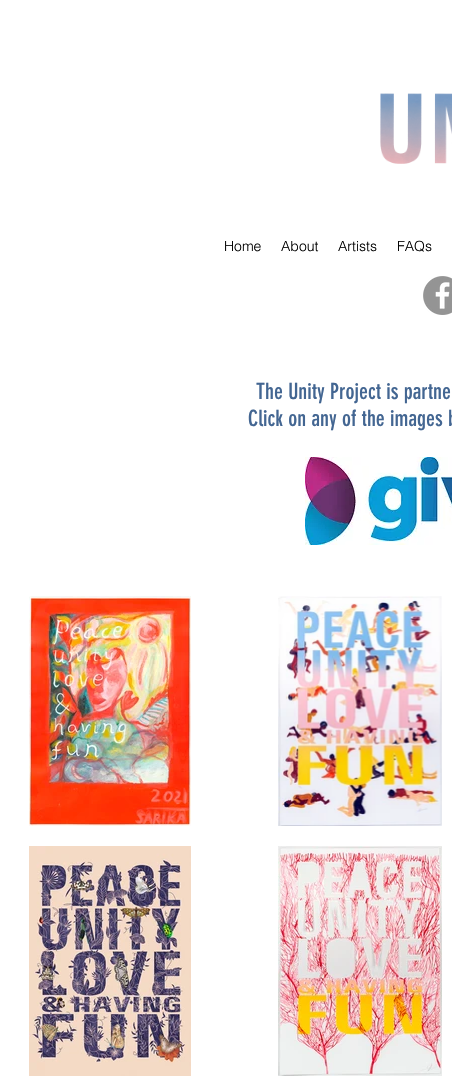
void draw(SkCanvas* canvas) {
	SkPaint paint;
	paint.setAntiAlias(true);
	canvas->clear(0xffffffff);
	canvas->drawImageRect(SkImages::DeferredFromEncodedData(SkData::MakeFromFileName("img1.png")), SkRect::MakeXYWH(380, 93, 72, 71), SkSamplingOptions());
	SkFont f1(fontMgr->matchFamilyStyle("helvetica", SkFontStyle(300, SkFontStyle::kNormal_Width, SkFontStyle::kUpright_Slant)), 14);
	f1.setSubpixel(true);
	paint.setColor(0xff000000);
	canvas->drawString("Home", 224, 251, f1, paint);
	canvas->drawString("About", 281, 251, f1, paint);
	canvas->drawString("Artists", 338, 251, f1, paint);
	canvas->drawString("FAQs", 397, 251, f1, paint);
	canvas->drawImageRect(SkImages::DeferredFromEncodedData(SkData::MakeFromFileName("img2.png")), SkRect::MakeXYWH(423, 276, 29, 39), SkSamplingOptions());
	SkFont f2(fontMgr->matchFamilyStyle("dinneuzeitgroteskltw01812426", SkFontStyle::Normal()), 22);
	f2.setSubpixel(true);
	paint.setColor(0xff436692);
	canvas->drawString("The Unity Project is partne", 256, 399, f2, paint);
	canvas->drawString("Click on any of the images b", 248, 426, f2, paint);
	canvas->drawImageRect(SkImages::DeferredFromEncodedData(SkData::MakeFromFileName("img3.png")), SkRect::MakeXYWH(305, 457, 147, 88), SkSamplingOptions());
	canvas->drawImageRect(SkImages::DeferredFromEncodedData(SkData::MakeFromFileName("img4.png")), SkRect::MakeXYWH(29, 596, 162, 230), SkSamplingOptions());
	canvas->drawImageRect(SkImages::DeferredFromEncodedData(SkData::MakeFromFileName("img5.png")), SkRect::MakeXYWH(278, 596, 164, 230), SkSamplingOptions());
	canvas->drawImageRect(SkImages::DeferredFromEncodedData(SkData::MakeFromFileName("img6.png")), SkRect::MakeXYWH(29, 846, 162, 230), SkSamplingOptions());
	canvas->drawImageRect(SkImages::DeferredFromEncodedData(SkData::MakeFromFileName("img7.png")), SkRect::MakeXYWH(278, 846, 164, 230), SkSamplingOptions());
}
